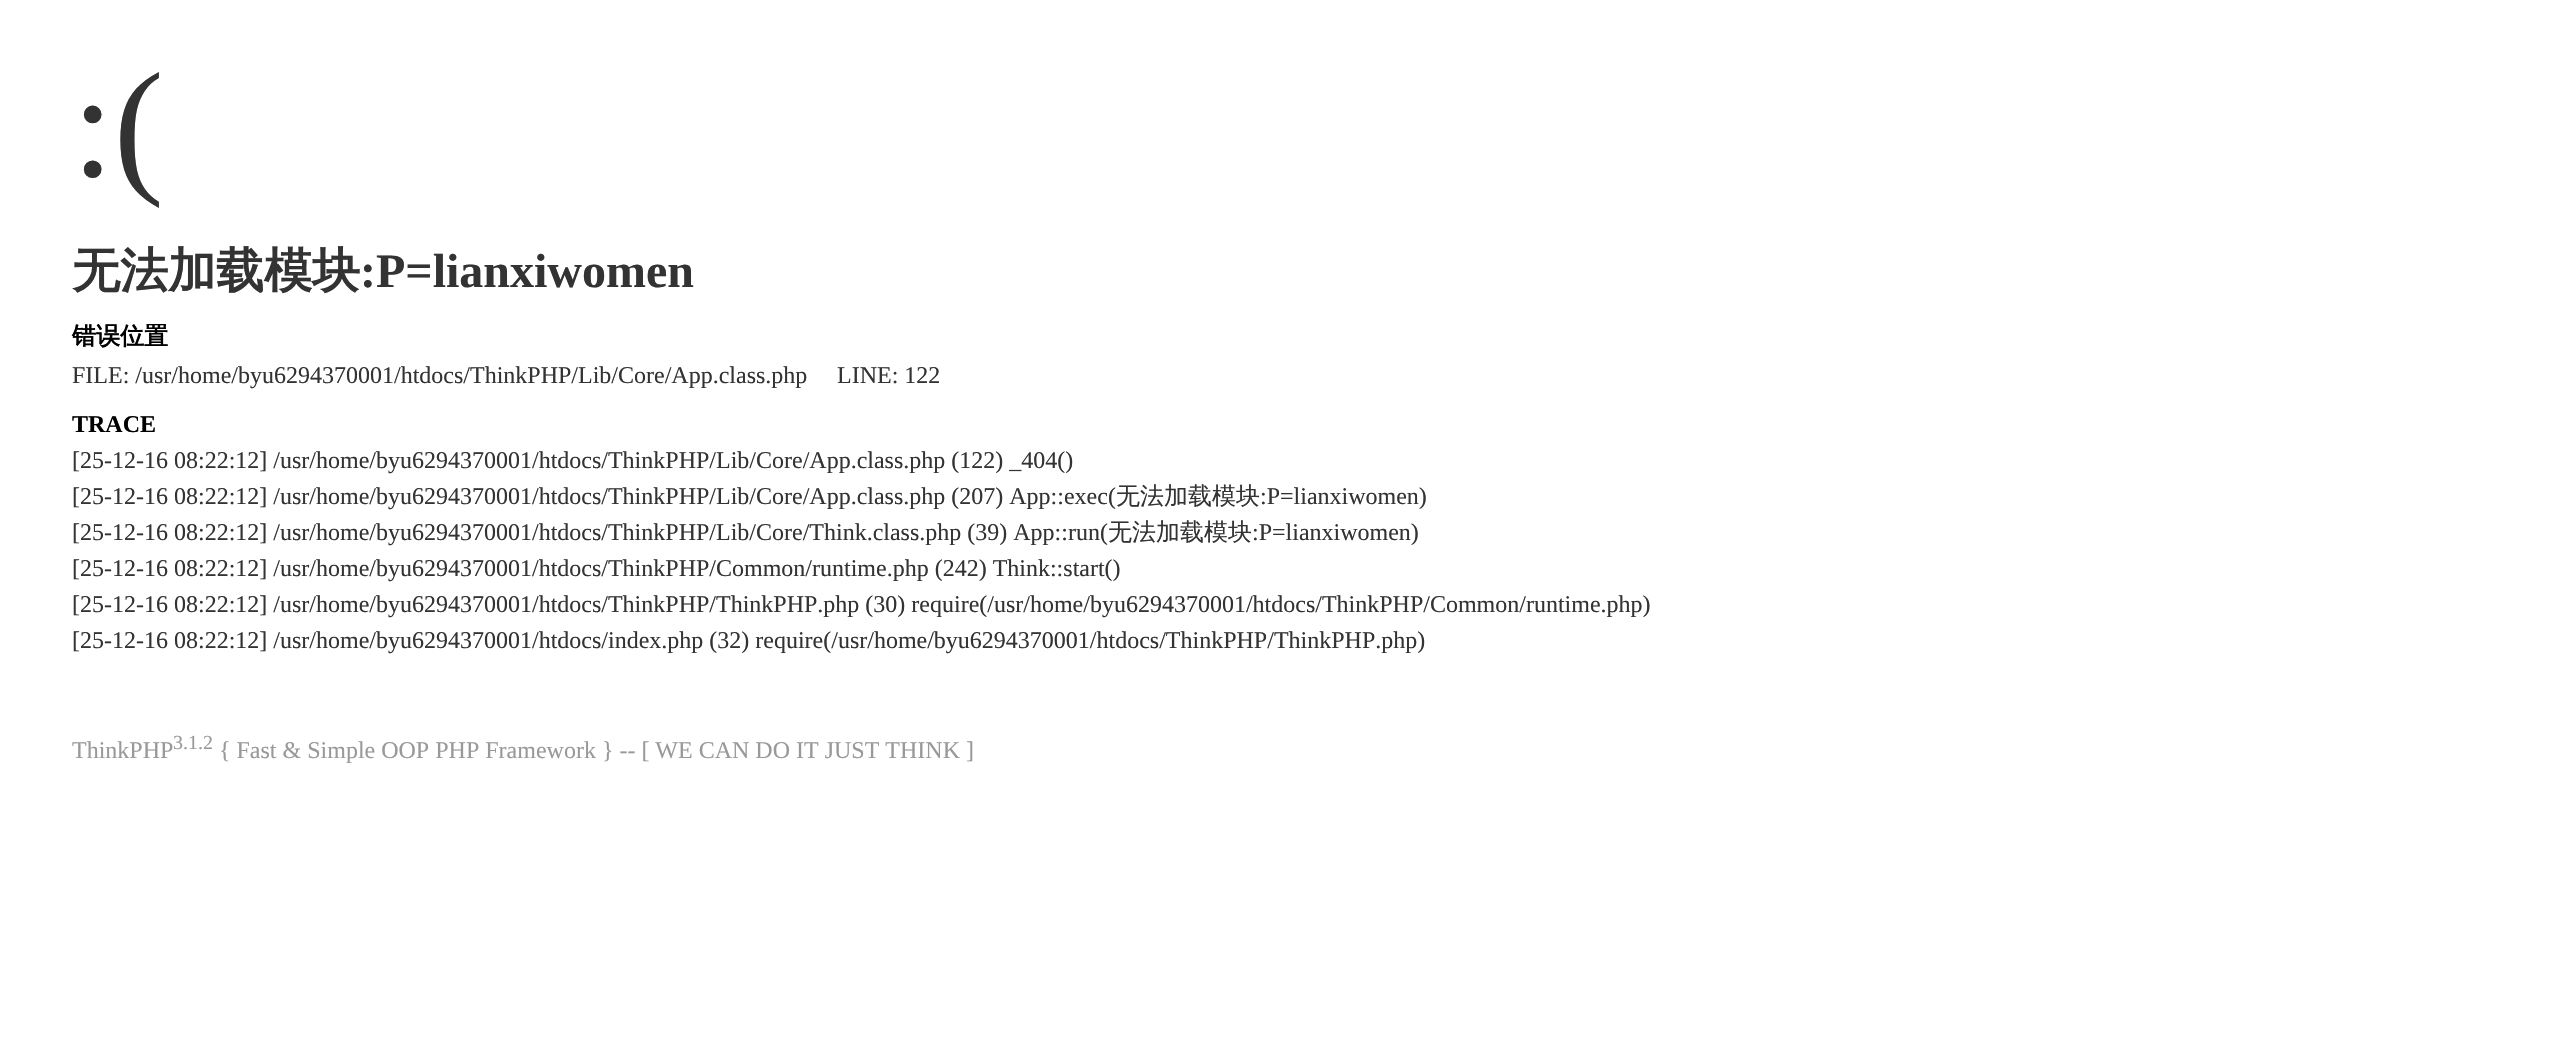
void draw(SkCanvas* canvas) {
	SkPaint paint;
	paint.setAntiAlias(true);
	canvas->clear(0xffffffff);
	SkFont f1(fontMgr->matchFamilyStyle("Liberation Serif", SkFontStyle::Normal()), 150);
	f1.setSubpixel(true);
	paint.setColor(0xff333333);
	canvas->drawString(":(", 72, 176, f1, paint);
	SkFont f2(fontMgr->matchFamilyStyle("WenQuanYi Zen Hei", SkFontStyle::Bold()), 48);
	f2.setSubpixel(true);
	canvas->drawString("无法加载模块", 72, 287, f2, paint);
	SkFont f3(fontMgr->matchFamilyStyle("Liberation Serif", SkFontStyle::Bold()), 48);
	f3.setSubpixel(true);
	canvas->drawString(":P=lianxiwomen", 360, 287, f3, paint);
	SkFont f4(fontMgr->matchFamilyStyle("WenQuanYi Zen Hei", SkFontStyle::Bold()), 24);
	f4.setSubpixel(true);
	paint.setColor(0xff000000);
	canvas->drawString("错误位置", 72, 344, f4, paint);
	SkFont f5(fontMgr->matchFamilyStyle("Liberation Serif", SkFontStyle::Normal()), 24);
	f5.setSubpixel(true);
	paint.setColor(0xff333333);
	canvas->drawString("FILE: /usr/home/byu6294370001/htdocs/ThinkPHP/Lib/Core/App.class.php", 72, 383, f5, paint);
	canvas->drawString("LINE: 122", 837, 383, f5, paint);
	SkFont f6(fontMgr->matchFamilyStyle("Liberation Serif", SkFontStyle::Bold()), 24);
	f6.setSubpixel(true);
	paint.setColor(0xff000000);
	canvas->drawString("TRACE", 72, 432, f6, paint);
	paint.setColor(0xff333333);
	canvas->drawString("[25-12-16 08:22:12] /usr/home/byu6294370001/htdocs/ThinkPHP/Lib/Core/App.class.php (122) _404()", 72, 468, f5, paint);
	canvas->drawString("[25-12-16 08:22:12] /usr/home/byu6294370001/htdocs/ThinkPHP/Lib/Core/App.class.php (207) App::exec(", 72, 504, f5, paint);
	SkFont f7(fontMgr->matchFamilyStyle("WenQuanYi Zen Hei", SkFontStyle(500, SkFontStyle::kNormal_Width, SkFontStyle::kUpright_Slant)), 24);
	f7.setSubpixel(true);
	canvas->drawString("无法加载模块", 1116, 504, f7, paint);
	canvas->drawString(":P=lianxiwomen)", 1260, 504, f5, paint);
	canvas->drawString("[25-12-16 08:22:12] /usr/home/byu6294370001/htdocs/ThinkPHP/Lib/Core/Think.class.php (39) App::run(", 72, 540, f5, paint);
	canvas->drawString("无法加载模块", 1108, 540, f7, paint);
	canvas->drawString(":P=lianxiwomen)", 1252, 540, f5, paint);
	canvas->drawString("[25-12-16 08:22:12] /usr/home/byu6294370001/htdocs/ThinkPHP/Common/runtime.php (242) Think::start()", 72, 576, f5, paint);
	canvas->drawString("[25-12-16 08:22:12] /usr/home/byu6294370001/htdocs/ThinkPHP/ThinkPHP.php (30) require(/usr/home/byu6294370001/htdocs/ThinkPHP/Common/runtime.php)", 72, 612, f5, paint);
	canvas->drawString("[25-12-16 08:22:12] /usr/home/byu6294370001/htdocs/index.php (32) require(/usr/home/byu6294370001/htdocs/ThinkPHP/ThinkPHP.php)", 72, 648, f5, paint);
	paint.setColor(0xff999999);
	canvas->drawString("ThinkPHP", 72, 758, f5, paint);
	SkFont f8(fontMgr->matchFamilyStyle("Liberation Serif", SkFontStyle::Normal()), 20);
	f8.setSubpixel(true);
	canvas->drawString("3.1.2", 173, 749, f8, paint);
	canvas->drawString("{ Fast & Simple OOP PHP Framework } -- [ WE CAN DO IT JUST THINK ]", 219, 758, f5, paint);
}
